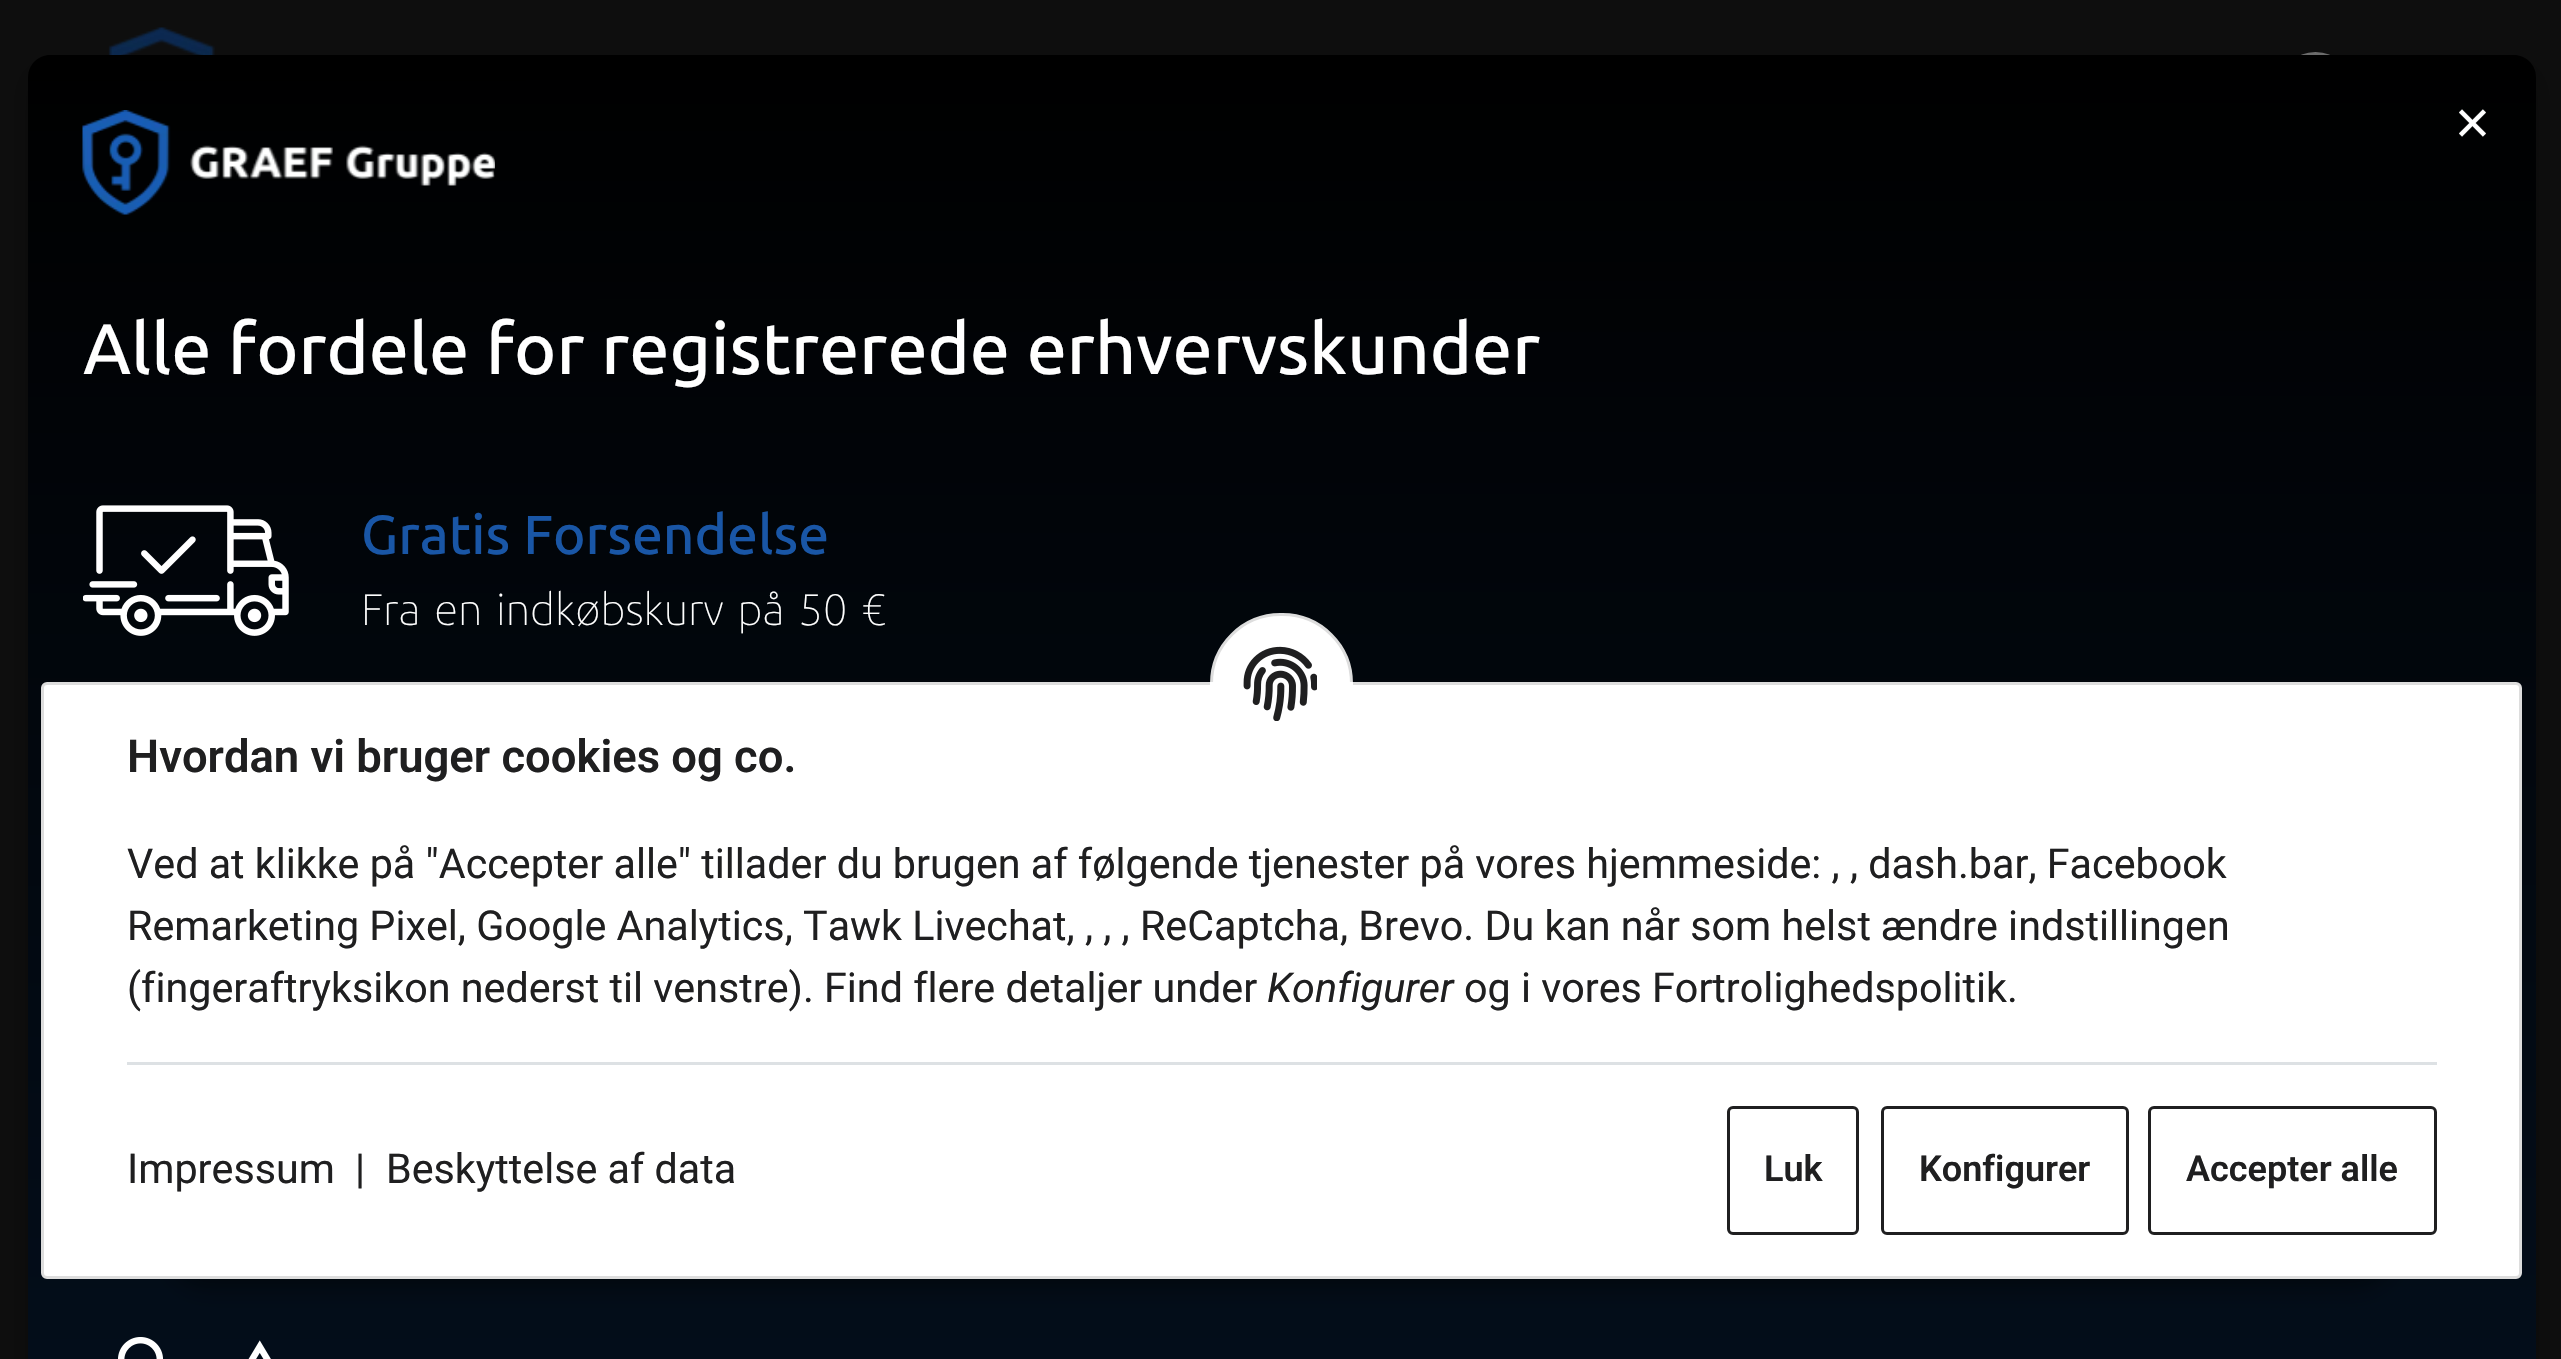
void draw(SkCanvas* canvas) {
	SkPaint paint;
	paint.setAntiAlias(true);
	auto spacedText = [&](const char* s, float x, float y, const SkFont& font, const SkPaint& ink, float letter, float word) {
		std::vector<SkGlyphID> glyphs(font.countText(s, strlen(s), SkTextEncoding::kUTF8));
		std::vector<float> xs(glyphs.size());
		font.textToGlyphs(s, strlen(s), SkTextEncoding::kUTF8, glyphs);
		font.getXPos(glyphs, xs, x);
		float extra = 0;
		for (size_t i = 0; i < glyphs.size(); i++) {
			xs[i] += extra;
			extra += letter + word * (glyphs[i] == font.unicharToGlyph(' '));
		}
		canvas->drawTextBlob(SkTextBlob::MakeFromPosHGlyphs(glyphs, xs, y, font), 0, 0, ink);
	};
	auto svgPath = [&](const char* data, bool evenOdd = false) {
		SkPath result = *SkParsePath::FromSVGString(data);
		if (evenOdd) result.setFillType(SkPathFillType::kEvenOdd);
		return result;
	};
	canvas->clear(0xff0e0e0e);
	canvas->drawImageRect(SkImages::DeferredFromEncodedData(SkData::MakeFromFileName("img1.png")), SkRect::MakeXYWH(108, 27, 107, 28), SkSamplingOptions());
	paint.setStroke(true);
	paint.setStrokeWidth(6);
	paint.setColor(0xff707070);
	canvas->drawRoundRect(SkRect::MakeXYWH(2283, 55, 65, 66), 32.5, 32.5, paint);
	paint.setStroke(false);
	paint.setColor(0x40000000);
	paint.setMaskFilter(SkMaskFilter::MakeBlur(kNormal_SkBlurStyle, 14));
	canvas->drawRoundRect(SkRect::MakeXYWH(28, 69, 2508, 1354), 22, 22, paint);
	paint.setMaskFilter(nullptr);
	{
		const SkColor colors[] = {0xff000000, 0xff041121, 0xff0c2a52};
		const float stops[] = {0, 0.75, 1};
		const SkPoint ends[] = {{1281, 55}, {1282, 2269}};
		paint.setShader(SkGradientShader::MakeLinear(ends, colors, stops, 3, SkTileMode::kClamp));
		paint.setAlpha(255);
	}
	canvas->drawPath(svgPath("M50 55H2514C2526 55 2536 65 2536 77V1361H28V77C28 65 38 55 50 55Z"), paint);
	SkFont f1(fontMgr->matchFamilyStyle("Ubuntu", SkFontStyle::Normal()), 69);
	f1.setSubpixel(true);
	paint.setShader(nullptr);
	paint.setColor(0xffffffff);
	canvas->drawString("×", 2453, 143, f1, paint);
	canvas->drawImageRect(SkImages::DeferredFromEncodedData(SkData::MakeFromFileName("img2.png")), SkRect::MakeXYWH(82, 110, 413, 105), SkSamplingOptions());
	SkFont f2(fontMgr->matchFamilyStyle("Ubuntu", SkFontStyle(500, SkFontStyle::kNormal_Width, SkFontStyle::kUpright_Slant)), 71.5);
	f2.setSubpixel(true);
	canvas->drawString("Alle fordele for registrerede erhvervskunder", 83, 374, f2, paint);
	canvas->drawImageRect(SkImages::DeferredFromEncodedData(SkData::MakeFromFileName("img3.png")), SkRect::MakeXYWH(83, 505, 206, 131), SkSamplingOptions());
	SkFont f3(fontMgr->matchFamilyStyle("Ubuntu", SkFontStyle(500, SkFontStyle::kNormal_Width, SkFontStyle::kUpright_Slant)), 55);
	f3.setSubpixel(true);
	paint.setColor(0xff1956a6);
	canvas->drawString("Gratis Forsendelse", 361, 554, f3, paint);
	SkFont f4(fontMgr->matchFamilyStyle("Ubuntu", SkFontStyle(100, SkFontStyle::kNormal_Width, SkFontStyle::kUpright_Slant)), 44);
	f4.setSubpixel(true);
	paint.setColor(0xffffffff);
	spacedText("Fra en indkøbskurv på 50 €", 361, 625, f4, paint, 0, 3.75);
	canvas->drawImageRect(SkImages::DeferredFromEncodedData(SkData::MakeFromFileName("img4.png")), SkRect::MakeXYWH(118, 1337, 153, 22), SkSamplingOptions());
	paint.setColor(0x73000000);
	paint.setMaskFilter(SkMaskFilter::MakeBlur(kNormal_SkBlurStyle, 13));
	canvas->drawRoundRect(SkRect::MakeXYWH(168, 1205, 2227, 82), 41, 41, paint);
	paint.setMaskFilter(nullptr);
	paint.setColor(0xffffffff);
	canvas->drawRoundRect(SkRect::MakeXYWH(42.5, 683.5, 2478, 594), 4.5, 4.5, paint);
	paint.setStroke(true);
	paint.setStrokeWidth(3);
	paint.setColor(0xffdddddd);
	canvas->drawRoundRect(SkRect::MakeXYWH(42.5, 683.5, 2478, 594), 4.5, 4.5, paint);
	paint.setStroke(false);
	paint.setColor(0xffffffff);
	canvas->drawRoundRect(SkRect::MakeXYWH(1211.5, 614.5, 140, 138), 69, 69, paint);
	paint.setStroke(true);
	paint.setColor(0xffdddddd);
	canvas->drawRoundRect(SkRect::MakeXYWH(1211.5, 614.5, 140, 138), 69, 69, paint);
	paint.setStroke(false);
	paint.setColor(0xffffffff);
	canvas->drawRect(SkRect::MakeXYWH(1210, 682, 143, 72), paint);
	canvas->drawImageRect(SkImages::DeferredFromEncodedData(SkData::MakeFromFileName("img5.png")), SkRect::MakeXYWH(1243, 646, 74, 75), SkSamplingOptions());
	SkFont f5(fontMgr->matchFamilyStyle("Roboto", SkFontStyle(600, SkFontStyle::kNormal_Width, SkFontStyle::kUpright_Slant)), 45.4);
	f5.setSubpixel(true);
	paint.setColor(0xff1f1f20);
	canvas->drawString("Hvordan vi bruger cookies og co.", 127, 772, f5, paint);
	SkFont f6(fontMgr->matchFamilyStyle("Roboto", SkFontStyle::Normal()), 41.25);
	f6.setSubpixel(true);
	canvas->drawString("Ved at klikke på \"Accepter alle\" tillader du brugen af følgende tjenester på vores hjemmeside: , , dash.bar, Facebook", 127, 878, f6, paint);
	canvas->drawString("Remarketing Pixel, Google Analytics, Tawk Livechat, , , , ReCaptcha, Brevo. Du kan når som helst ændre indstillingen", 127, 940, f6, paint);
	canvas->drawString("(fingeraftryksikon nederst til venstre). Find flere detaljer under", 127, 1002, f6, paint);
	SkFont f7(fontMgr->matchFamilyStyle("Roboto", SkFontStyle::Italic()), 41.25);
	f7.setSubpixel(true);
	canvas->drawString("Konfigurer", 1267, 1002, f7, paint);
	canvas->drawString("og i vores Fortrolighedspolitik.", 1464, 1002, f6, paint);
	paint.setColor(0xffdde1e4);
	canvas->drawRect(SkRect::MakeXYWH(127, 1062, 2310, 3), paint);
	paint.setColor(0xff1f1f20);
	canvas->drawString("Impressum", 127, 1183, f6, paint);
	canvas->drawString("|", 355, 1183, f6, paint);
	canvas->drawString("Beskyttelse af data", 386, 1183, f6, paint);
	paint.setStroke(true);
	canvas->drawRoundRect(SkRect::MakeXYWH(1728.5, 1107.5, 129, 126), 4.5, 4.5, paint);
	SkFont f8(fontMgr->matchFamilyStyle("Roboto", SkFontStyle(600, SkFontStyle::kNormal_Width, SkFontStyle::kUpright_Slant)), 36);
	f8.setSubpixel(true);
	paint.setStroke(false);
	canvas->drawString("Luk", 1764, 1181, f8, paint);
	paint.setStroke(true);
	canvas->drawRoundRect(SkRect::MakeXYWH(1882.5, 1107.5, 245, 126), 4.5, 4.5, paint);
	paint.setStroke(false);
	canvas->drawString("Konfigurer", 1919, 1181, f8, paint);
	paint.setStroke(true);
	canvas->drawRoundRect(SkRect::MakeXYWH(2149.5, 1107.5, 286, 126), 4.5, 4.5, paint);
	paint.setStroke(false);
	canvas->drawString("Accepter alle", 2186, 1181, f8, paint);
}
